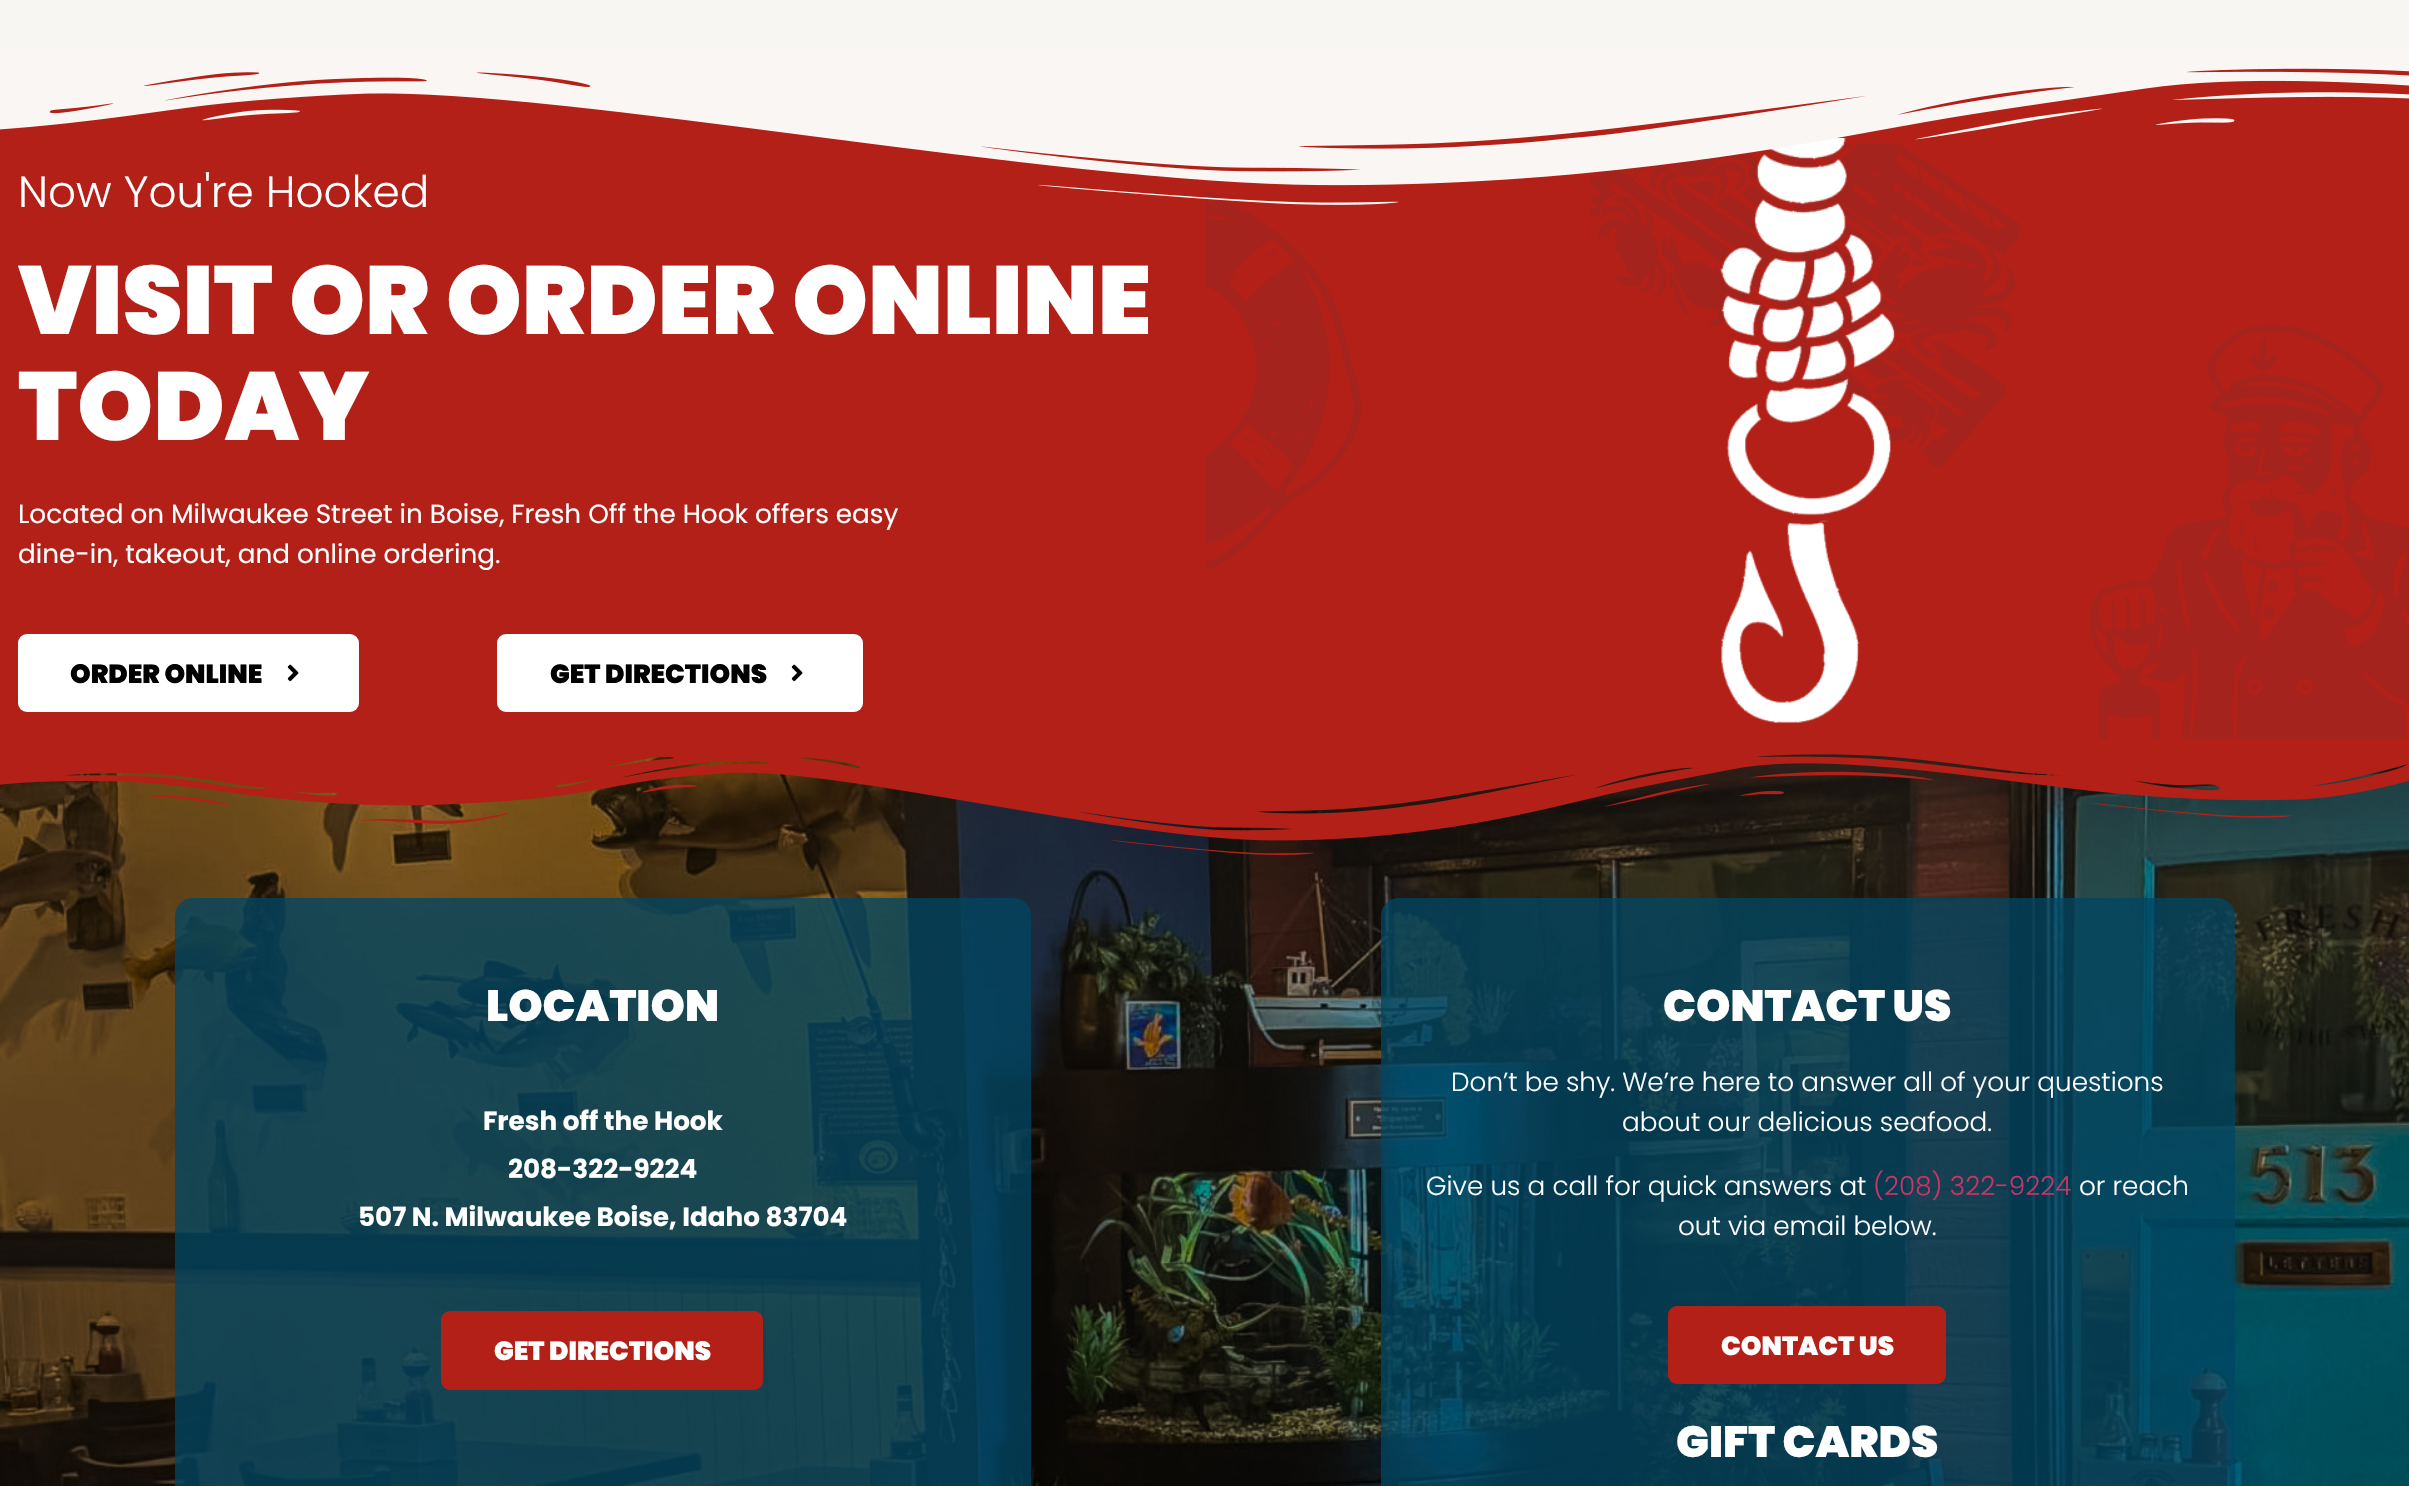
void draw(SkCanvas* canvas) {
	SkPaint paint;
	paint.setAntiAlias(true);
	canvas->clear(0xfff8f6f3);
	paint.setColor(0xffb22017);
	canvas->drawRect(SkRect::MakeXYWH(0, 68, 2409, 671), paint);
	SkFont f1(fontMgr->matchFamilyStyle("Poppins", SkFontStyle(300, SkFontStyle::kNormal_Width, SkFontStyle::kUpright_Slant)), 43.75);
	f1.setSubpixel(true);
	paint.setColor(0xffffffff);
	canvas->drawString("Now You're Hooked", 18, 207, f1, paint);
	canvas->drawImageRect(SkImages::DeferredFromEncodedData(SkData::MakeFromFileName("img4.png")), SkRect::MakeXYWH(1206, 143, 1203, 596), SkSamplingOptions());
	canvas->drawImageRect(SkImages::DeferredFromEncodedData(SkData::MakeFromFileName("img3.png")), SkRect::MakeXYWH(1720, 138, 175, 585), SkSamplingOptions());
	canvas->drawImageRect(SkImages::DeferredFromEncodedData(SkData::MakeFromFileName("img1.png")), SkRect::MakeXYWH(0, 49, 2409, 156), SkSamplingOptions());
	SkFont f2(fontMgr->matchFamilyStyle("Poppins", SkFontStyle(900, SkFontStyle::kNormal_Width, SkFontStyle::kUpright_Slant)), 96.25);
	f2.setSubpixel(true);
	canvas->drawString("VISIT OR ORDER ONLINE", 18, 334, f2, paint);
	canvas->drawString("TODAY", 18, 440, f2, paint);
	SkFont f3(fontMgr->matchFamilyStyle("Poppins", SkFontStyle::Normal()), 26.25);
	f3.setSubpixel(true);
	canvas->drawString("Located on Milwaukee Street in Boise, Fresh Off the Hook offers easy", 18, 523, f3, paint);
	canvas->drawString("dine-in, takeout, and online ordering.", 18, 563, f3, paint);
	canvas->drawRoundRect(SkRect::MakeXYWH(18, 634, 341, 78), 9, 9, paint);
	SkFont f4(fontMgr->matchFamilyStyle("Poppins", SkFontStyle(900, SkFontStyle::kNormal_Width, SkFontStyle::kUpright_Slant)), 26.25);
	f4.setSubpixel(true);
	paint.setColor(0xff000000);
	canvas->drawString("ORDER ONLINE", 70, 683, f4, paint);
	canvas->drawImageRect(SkImages::DeferredFromEncodedData(SkData::MakeFromFileName("img2.png")), SkRect::MakeXYWH(287, 664, 12, 18), SkSamplingOptions());
	paint.setColor(0xffffffff);
	canvas->drawRoundRect(SkRect::MakeXYWH(497, 634, 366, 78), 9, 9, paint);
	paint.setColor(0xff000000);
	canvas->drawString("GET DIRECTIONS", 550, 683, f4, paint);
	canvas->drawImageRect(SkImages::DeferredFromEncodedData(SkData::MakeFromFileName("img2.png")), SkRect::MakeXYWH(791, 664, 12, 18), SkSamplingOptions());
	canvas->drawImageRect(SkImages::DeferredFromEncodedData(SkData::MakeFromFileName("img5.png")), SkRect::MakeXYWH(0, 754, 2409, 732), SkSamplingOptions());
	canvas->drawImageRect(SkImages::DeferredFromEncodedData(SkData::MakeFromFileName("img6.png")), SkRect::MakeXYWH(0, 739, 2409, 116), SkSamplingOptions());
	paint.setColor(0xc4004561);
	canvas->drawRoundRect(SkRect::MakeXYWH(175, 898, 856, 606), 18, 18, paint);
	SkFont f5(fontMgr->matchFamilyStyle("Poppins", SkFontStyle(900, SkFontStyle::kNormal_Width, SkFontStyle::kUpright_Slant)), 43.75);
	f5.setSubpixel(true);
	paint.setColor(0xffffffff);
	canvas->drawString("LOCATION", 486, 1021, f5, paint);
	SkFont f6(fontMgr->matchFamilyStyle("Poppins", SkFontStyle::Bold()), 26.25);
	f6.setSubpixel(true);
	canvas->drawString("Fresh off the Hook", 483, 1130, f6, paint);
	canvas->drawString("208-322-9224", 508, 1178, f6, paint);
	canvas->drawString("507 N. Milwaukee Boise, Idaho 83704", 358, 1226, f6, paint);
	paint.setColor(0xffb22017);
	canvas->drawRoundRect(SkRect::MakeXYWH(441, 1311, 322, 79), 9, 9, paint);
	paint.setColor(0xffffffff);
	canvas->drawString("GET DIRECTIONS", 494, 1360, f4, paint);
	paint.setColor(0xc4004561);
	canvas->drawRoundRect(SkRect::MakeXYWH(1381, 898, 854, 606), 18, 18, paint);
	paint.setColor(0xffffffff);
	canvas->drawString("CONTACT US", 1663, 1021, f5, paint);
	SkFont f7(fontMgr->matchFamilyStyle("Poppins", SkFontStyle(300, SkFontStyle::kNormal_Width, SkFontStyle::kUpright_Slant)), 26.25);
	f7.setSubpixel(true);
	canvas->drawString("Don’t be shy. We’re here to answer all of your questions", 1451, 1091, f7, paint);
	canvas->drawString("about our delicious seafood.", 1622, 1131, f7, paint);
	canvas->drawString("Give us a call for quick answers at", 1426, 1195, f7, paint);
	paint.setColor(0xffcc3366);
	canvas->drawString("(208) 322-9224", 1873, 1195, f7, paint);
	paint.setColor(0xffffffff);
	canvas->drawString("or reach", 2079, 1195, f7, paint);
	canvas->drawString("out via email below.", 1678, 1235, f7, paint);
	paint.setColor(0xffb22017);
	canvas->drawRoundRect(SkRect::MakeXYWH(1668, 1306, 278, 78), 9, 9, paint);
	paint.setColor(0xffffffff);
	canvas->drawString("CONTACT US", 1721, 1355, f4, paint);
	canvas->drawString("GIFT CARDS", 1676, 1457, f5, paint);
}
